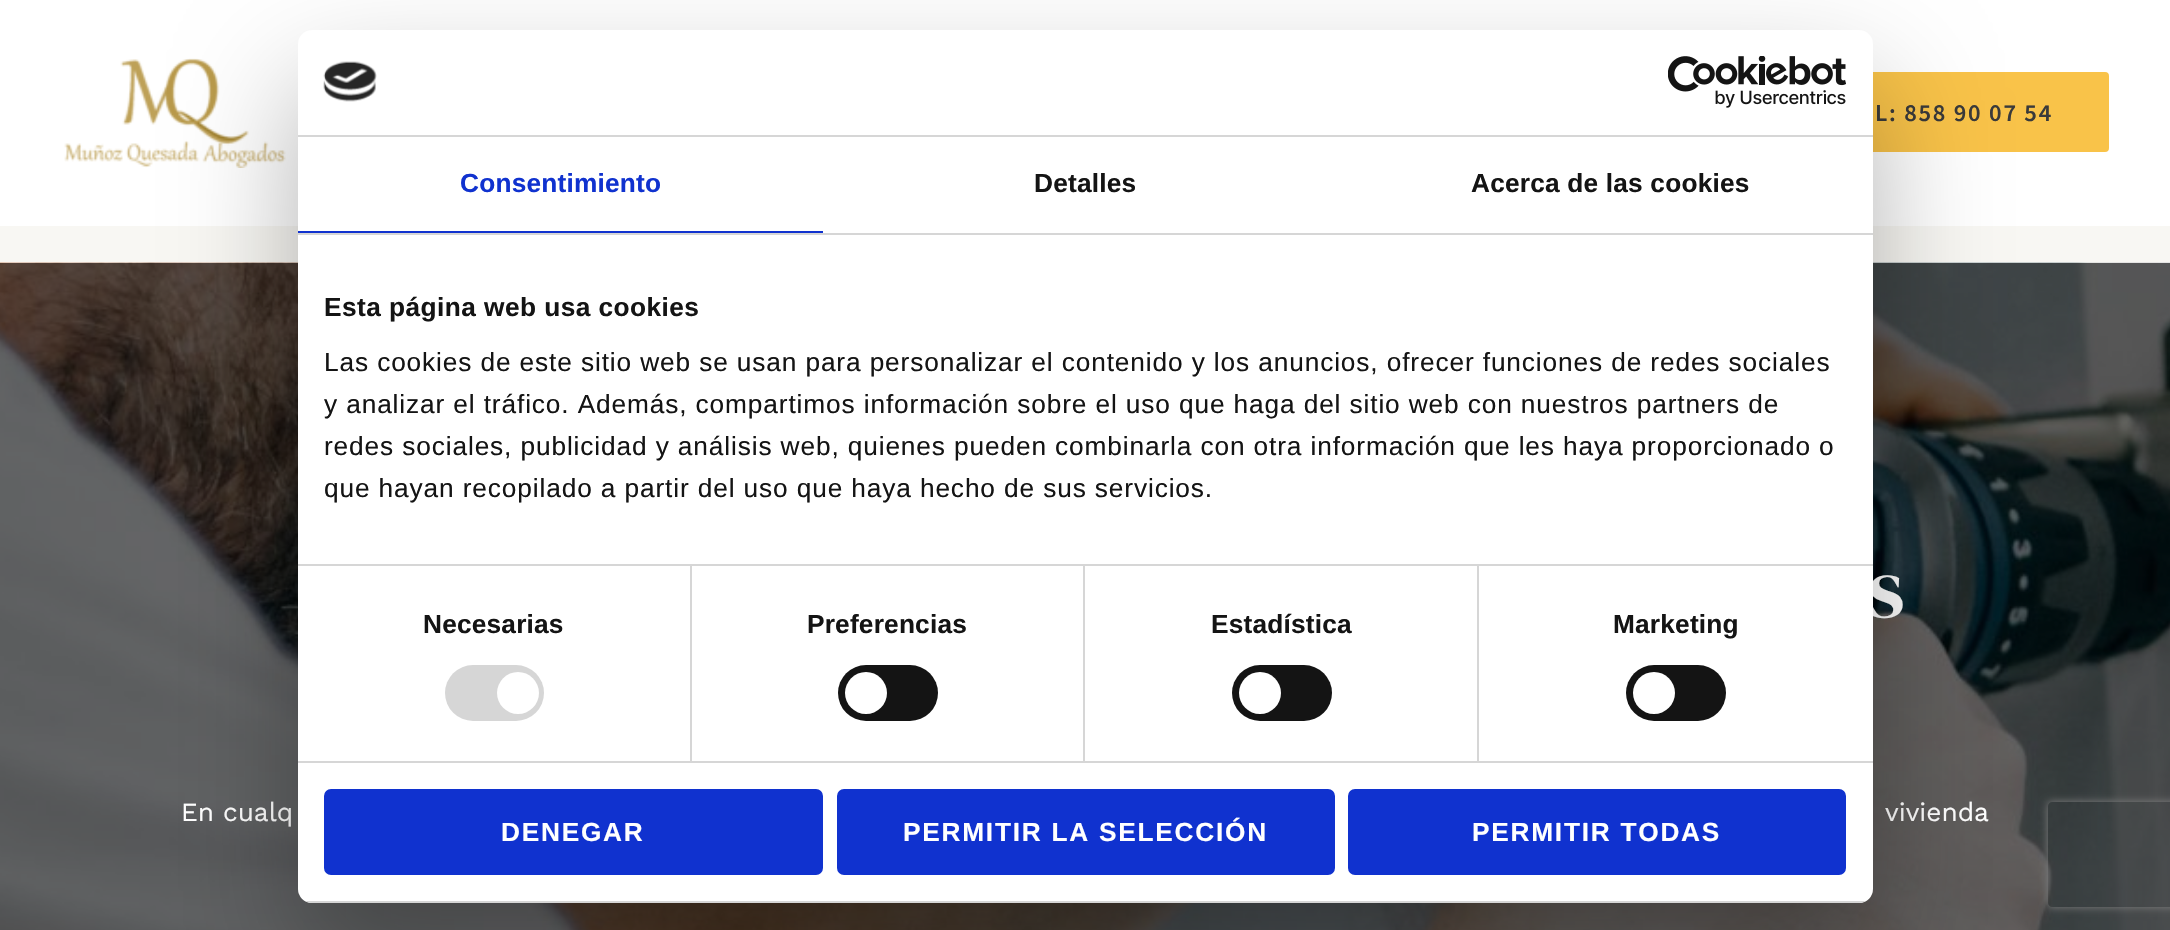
void draw(SkCanvas* canvas) {
	SkPaint paint;
	paint.setAntiAlias(true);
	auto spacedText = [&](const char* s, float x, float y, const SkFont& font, const SkPaint& ink, float letter, float word) {
		std::vector<SkGlyphID> glyphs(font.countText(s, strlen(s), SkTextEncoding::kUTF8));
		std::vector<float> xs(glyphs.size());
		font.textToGlyphs(s, strlen(s), SkTextEncoding::kUTF8, glyphs);
		font.getXPos(glyphs, xs, x);
		float extra = 0;
		for (size_t i = 0; i < glyphs.size(); i++) {
			xs[i] += extra;
			extra += letter + word * (glyphs[i] == font.unicharToGlyph(' '));
		}
		canvas->drawTextBlob(SkTextBlob::MakeFromPosHGlyphs(glyphs, xs, y, font), 0, 0, ink);
	};
	auto svgPath = [&](const char* data, bool evenOdd = false) {
		SkPath result = *SkParsePath::FromSVGString(data);
		if (evenOdd) result.setFillType(SkPathFillType::kEvenOdd);
		return result;
	};
	canvas->clear(0xfff8f7f3);
	paint.setColor(0xffffffff);
	canvas->drawRect(SkRect::MakeXYWH(0, 0, 2170, 226), paint);
	canvas->drawImageRect(SkImages::DeferredFromEncodedData(SkData::MakeFromFileName("img1.png")), SkRect::MakeXYWH(64, 58, 222, 110), SkSamplingOptions());
	paint.setColor(0xfff9c349);
	canvas->drawRoundRect(SkRect::MakeXYWH(1720, 73, 388, 78), 3, 3, paint);
	paint.setStroke(true);
	paint.setStrokeWidth(2);
	canvas->drawRoundRect(SkRect::MakeXYWH(1720, 73, 388, 78), 3, 3, paint);
	SkFont f1(fontMgr->matchFamilyStyle("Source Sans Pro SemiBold", SkFontStyle(600, SkFontStyle::kNormal_Width, SkFontStyle::kUpright_Slant)), 24.5);
	f1.setSubpixel(true);
	paint.setStroke(false);
	paint.setColor(0xff3a3a3a);
	spacedText("L: 858 90 07 54", 1875, 121, f1, paint, 1.75, 0);
	canvas->drawImageRect(SkImages::DeferredFromEncodedData(SkData::MakeFromFileName("img2.png")), SkRect::MakeXYWH(0, 262, 2170, 668), SkSamplingOptions());
	SkFont f2(fontMgr->matchFamilyStyle("DM Serif Display", SkFontStyle::Normal()), 84);
	f2.setSubpixel(true);
	paint.setColor(0xffffffff);
	canvas->drawString("s", 1868, 617, f2, paint);
	SkFont f3(fontMgr->matchFamilyStyle("Work Sans", SkFontStyle::Normal()), 26.25);
	f3.setSubpixel(true);
	canvas->drawString("En cualq", 181, 821, f3, paint);
	canvas->drawString("vivienda", 1885, 821, f3, paint);
	canvas->save();
	canvas->clipPath(svgPath("M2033 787H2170V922H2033ZM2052 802H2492C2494 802 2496 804 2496 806V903C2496 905 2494 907 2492 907H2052C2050 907 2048 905 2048 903V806C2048 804 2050 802 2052 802Z", true), true);
	paint.setColor(0xff808080);
	paint.setMaskFilter(SkMaskFilter::MakeBlur(kNormal_SkBlurStyle, 4.5));
	canvas->drawRoundRect(SkRect::MakeXYWH(2048, 802, 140, 105), 4, 4, paint);
	paint.setMaskFilter(nullptr);
	canvas->restore();
	paint.setColor(0x4d000000);
	paint.setMaskFilter(SkMaskFilter::MakeBlur(kNormal_SkBlurStyle, 59.5));
	canvas->drawRoundRect(SkRect::MakeXYWH(298, 86, 1575, 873), 14, 14, paint);
	paint.setMaskFilter(nullptr);
	paint.setColor(0xffffffff);
	canvas->drawRoundRect(SkRect::MakeXYWH(298, 30, 1575, 873), 14, 14, paint);
	paint.setColor(0xffd6d6d6);
	canvas->drawRect(SkRect::MakeXYWH(298, 135, 1575, 2), paint);
	canvas->drawImageRect(SkImages::DeferredFromEncodedData(SkData::MakeFromFileName("img3.png")), SkRect::MakeXYWH(323, 61, 54, 41), SkSamplingOptions());
	canvas->drawImageRect(SkImages::DeferredFromEncodedData(SkData::MakeFromFileName("img4.png")), SkRect::MakeXYWH(1668, 56, 178, 52), SkSamplingOptions());
	canvas->drawRect(SkRect::MakeXYWH(298, 233, 1575, 2), paint);
	paint.setColor(0xff1032cf);
	canvas->drawRect(SkRect::MakeXYWH(298, 231, 525, 2), paint);
	SkFont f4(fontMgr->matchFamilyStyle("Liberation Sans", SkFontStyle::Bold()), 26.25);
	f4.setSubpixel(true);
	spacedText("Consentimiento", 460, 192, f4, paint, 0.2, 0);
	paint.setColor(0xff141414);
	spacedText("Detalles", 1034, 192, f4, paint, 0.2, 0);
	spacedText("Acerca de las cookies", 1471, 192, f4, paint, 0.2, 0);
	paint.setColor(0xffd6d6d6);
	canvas->drawRect(SkRect::MakeXYWH(690, 565, 2, 196), paint);
	canvas->drawRect(SkRect::MakeXYWH(1083, 565, 2, 196), paint);
	canvas->drawRect(SkRect::MakeXYWH(1477, 565, 2, 196), paint);
	canvas->drawRect(SkRect::MakeXYWH(298, 564, 1575, 2), paint);
	paint.setColor(0xff141414);
	spacedText("Esta página web usa cookies", 324, 316, f4, paint, 0.45, 0);
	SkFont f5(fontMgr->matchFamilyStyle("Liberation Sans", SkFontStyle::Normal()), 26.25);
	f5.setSubpixel(true);
	spacedText("Las cookies de este sitio web se usan para personalizar el contenido y los anuncios, ofrecer funciones de redes sociales", 324, 371, f5, paint, 0.88, 0);
	spacedText("y analizar el tráfico. Además, compartimos información sobre el uso que haga del sitio web con nuestros partners de", 324, 413, f5, paint, 0.88, 0);
	spacedText("redes sociales, publicidad y análisis web, quienes pueden combinarla con otra información que les haya proporcionado o", 324, 455, f5, paint, 0.88, 0);
	spacedText("que hayan recopilado a partir del uso que haya hecho de sus servicios.", 324, 497, f5, paint, 0.88, 0);
	paint.setColor(0xffd6d6d6);
	canvas->drawRect(SkRect::MakeXYWH(298, 761, 1575, 2), paint);
	paint.setColor(0xff141414);
	spacedText("Necesarias", 423, 633, f4, paint, 0.2, 0);
	paint.setColor(0xffd6d6d6);
	canvas->drawRoundRect(SkRect::MakeXYWH(445, 665, 99, 56), 28, 28, paint);
	paint.setColor(0xffffffff);
	canvas->drawCircle(518, 693, 21, paint);
	paint.setColor(0xff141414);
	spacedText("Preferencias", 807, 633, f4, paint, 0.2, 0);
	canvas->drawRoundRect(SkRect::MakeXYWH(838, 665, 100, 56), 28, 28, paint);
	paint.setColor(0xffffffff);
	canvas->drawCircle(866, 693, 21, paint);
	paint.setColor(0xff141414);
	spacedText("Estadística", 1211, 633, f4, paint, 0.2, 0);
	canvas->drawRoundRect(SkRect::MakeXYWH(1232, 665, 100, 56), 28, 28, paint);
	paint.setColor(0xffffffff);
	canvas->drawCircle(1260, 693, 21, paint);
	paint.setColor(0xff141414);
	spacedText("Marketing", 1613, 633, f4, paint, 0.2, 0);
	canvas->drawRoundRect(SkRect::MakeXYWH(1626, 665, 100, 56), 28, 28, paint);
	paint.setColor(0xffffffff);
	canvas->drawCircle(1654, 693, 21, paint);
	canvas->save();
	canvas->clipPath(svgPath("M312 30H1859C1866.5 30 1873 36.5 1873 44V889C1873 896.5 1866.5 903 1859 903H312C304.5 903 298 896.5 298 889V44C298 36.5 304.5 30 312 30Z"), true);
	paint.setColor(0xffd6d6d6);
	canvas->drawRect(SkRect::MakeXYWH(298, 901, 1575, 2), paint);
	canvas->restore();
	paint.setColor(0xff1032cf);
	canvas->drawRoundRect(SkRect::MakeXYWH(326, 791, 495, 82), 5, 5, paint);
	paint.setStroke(true);
	paint.setStrokeWidth(4);
	canvas->drawRoundRect(SkRect::MakeXYWH(326, 791, 495, 82), 5, 5, paint);
	paint.setStroke(false);
	paint.setColor(0xffffffff);
	spacedText("DENEGAR", 501, 841, f4, paint, 1.75, 0);
	paint.setColor(0xff1032cf);
	canvas->drawRoundRect(SkRect::MakeXYWH(839, 791, 494, 82), 5, 5, paint);
	paint.setStroke(true);
	canvas->drawRoundRect(SkRect::MakeXYWH(839, 791, 494, 82), 5, 5, paint);
	paint.setStroke(false);
	paint.setColor(0xffffffff);
	spacedText("PERMITIR LA SELECCIÓN", 903, 841, f4, paint, 1.75, 0);
	paint.setColor(0xff1032cf);
	canvas->drawRoundRect(SkRect::MakeXYWH(1350, 791, 494, 82), 5, 5, paint);
	paint.setStroke(true);
	canvas->drawRoundRect(SkRect::MakeXYWH(1350, 791, 494, 82), 5, 5, paint);
	paint.setStroke(false);
	paint.setColor(0xffffffff);
	spacedText("PERMITIR TODAS", 1472, 841, f4, paint, 1.75, 0);
}
